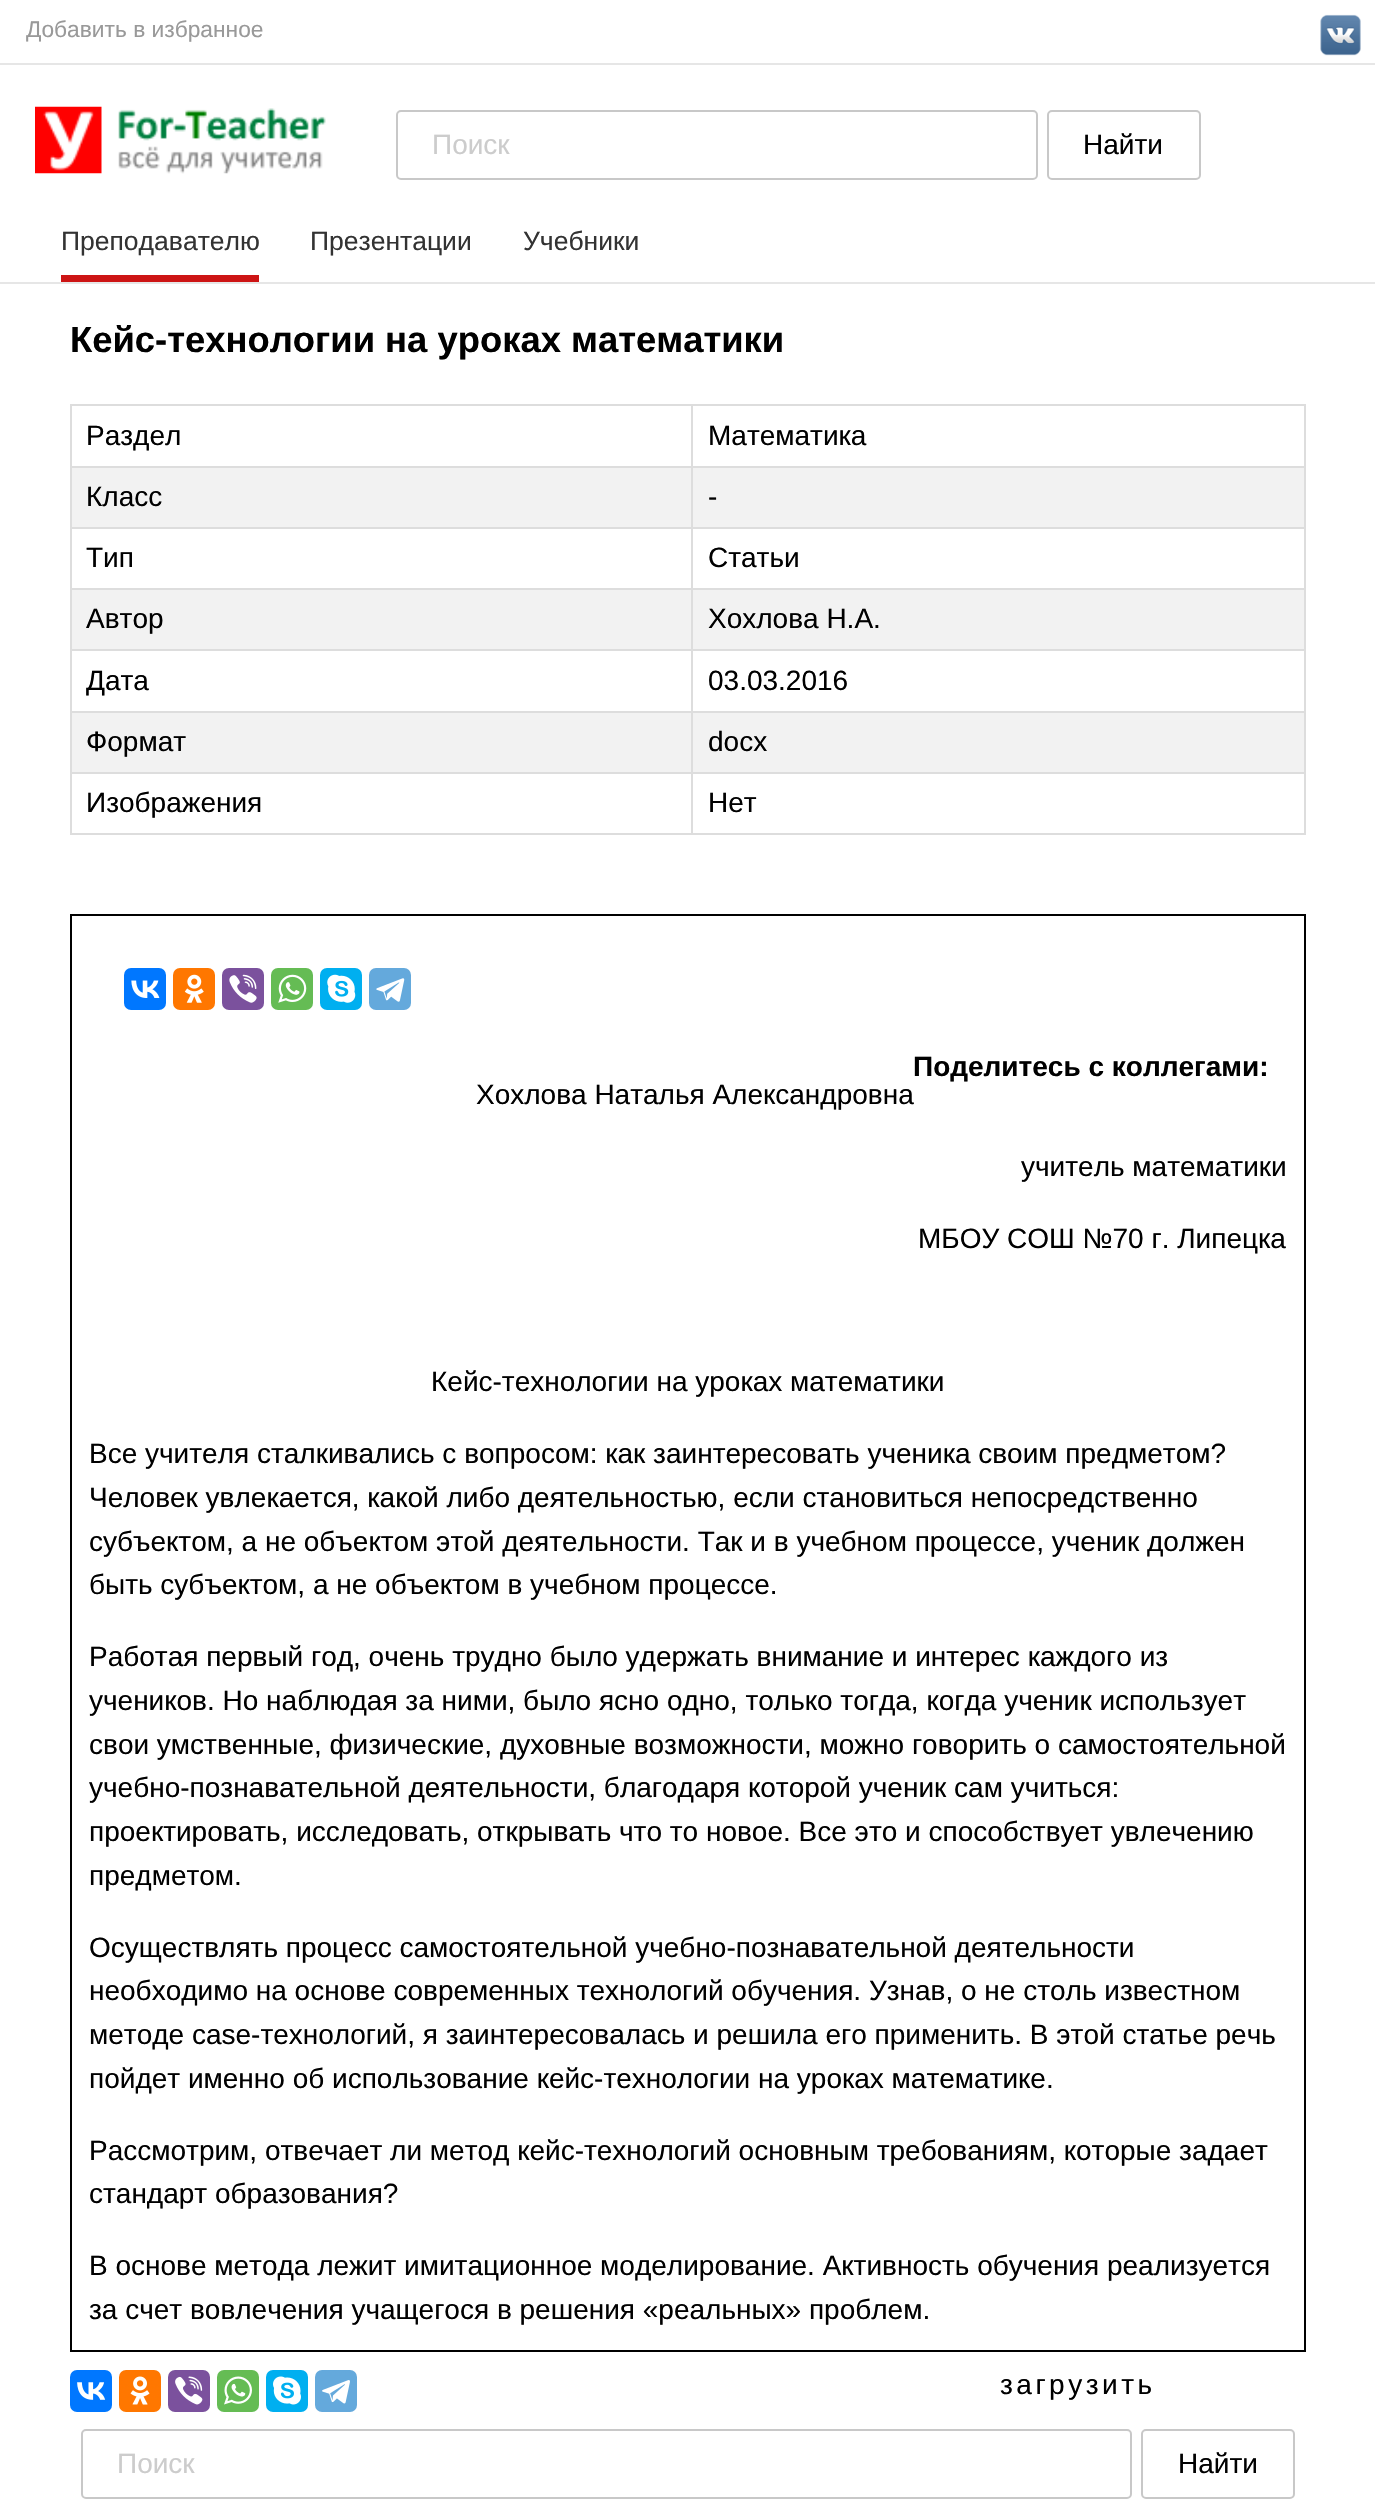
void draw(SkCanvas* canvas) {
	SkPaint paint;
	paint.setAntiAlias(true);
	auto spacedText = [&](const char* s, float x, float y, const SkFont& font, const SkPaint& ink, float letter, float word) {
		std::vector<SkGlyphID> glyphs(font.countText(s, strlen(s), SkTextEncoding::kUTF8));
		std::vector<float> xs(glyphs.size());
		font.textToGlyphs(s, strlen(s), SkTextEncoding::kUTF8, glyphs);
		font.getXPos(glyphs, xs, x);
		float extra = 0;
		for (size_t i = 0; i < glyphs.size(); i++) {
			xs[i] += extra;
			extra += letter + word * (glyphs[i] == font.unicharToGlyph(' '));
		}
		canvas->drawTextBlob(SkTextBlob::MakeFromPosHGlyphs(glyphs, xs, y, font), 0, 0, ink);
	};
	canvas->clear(0xffffffff);
	paint.setColor(0xffe6e6e6);
	canvas->drawRect(SkRect::MakeXYWH(0, 282, 1375, 2), paint);
	canvas->drawRect(SkRect::MakeXYWH(0, 63, 1375, 2), paint);
	SkFont f1(fontMgr->matchFamilyStyle("Liberation Sans", SkFontStyle::Normal()), 22.75);
	f1.setSubpixel(true);
	paint.setColor(0xff999999);
	canvas->drawString("Добавить в избранное", 26, 37, f1, paint);
	canvas->drawImageRect(SkImages::DeferredFromEncodedData(SkData::MakeFromFileName("img1.png")), SkRect::MakeXYWH(1320, 14, 41, 42), SkSamplingOptions());
	canvas->drawImageRect(SkImages::DeferredFromEncodedData(SkData::MakeFromFileName("img2.png")), SkRect::MakeXYWH(35, 106, 291, 68), SkSamplingOptions());
	paint.setStroke(true);
	paint.setStrokeWidth(2);
	paint.setColor(0xffc8c8c8);
	canvas->drawRoundRect(SkRect::MakeXYWH(397, 111, 640, 68), 4, 4, paint);
	SkFont f2(fontMgr->matchFamilyStyle("Liberation Sans", SkFontStyle::Normal()), 28);
	f2.setSubpixel(true);
	paint.setStroke(false);
	paint.setColor(0xffcccccc);
	canvas->drawString("Поиск", 432, 154, f2, paint);
	paint.setStroke(true);
	paint.setColor(0xffc8c8c8);
	canvas->drawRoundRect(SkRect::MakeXYWH(1048, 111, 152, 68), 4, 4, paint);
	paint.setStroke(false);
	paint.setColor(0xff000000);
	canvas->drawString("Найти", 1083, 154, f2, paint);
	SkFont f3(fontMgr->matchFamilyStyle("Liberation Sans", SkFontStyle::Normal()), 26.5);
	f3.setSubpixel(true);
	paint.setColor(0xff333333);
	canvas->drawString("Преподавателю", 61, 250, f3, paint);
	paint.setColor(0xffcd1414);
	canvas->drawRect(SkRect::MakeXYWH(61, 275, 198, 7), paint);
	paint.setColor(0xff333333);
	canvas->drawString("Презентации", 310, 250, f3, paint);
	canvas->drawString("Учебники", 523, 250, f3, paint);
	SkFont f4(fontMgr->matchFamilyStyle("Liberation Sans", SkFontStyle::Bold()), 36.4);
	f4.setSubpixel(true);
	paint.setColor(0xff000000);
	canvas->drawString("Кейс-технологии на уроках математики", 70, 352, f4, paint);
	paint.setColor(0xffdddddd);
	canvas->drawRect(SkRect::MakeXYWH(691, 404, 615, 2), paint);
	canvas->drawRect(SkRect::MakeXYWH(691, 466, 615, 2), paint);
	paint.setColor(0xfff2f2f2);
	canvas->drawRect(SkRect::MakeXYWH(72, 468, 1232, 59), paint);
	paint.setColor(0xffdddddd);
	canvas->drawRect(SkRect::MakeXYWH(691, 527, 615, 2), paint);
	canvas->drawRect(SkRect::MakeXYWH(691, 588, 615, 2), paint);
	paint.setColor(0xfff2f2f2);
	canvas->drawRect(SkRect::MakeXYWH(72, 590, 1232, 59), paint);
	paint.setColor(0xffdddddd);
	canvas->drawRect(SkRect::MakeXYWH(691, 649, 615, 2), paint);
	canvas->drawRect(SkRect::MakeXYWH(691, 711, 615, 2), paint);
	paint.setColor(0xfff2f2f2);
	canvas->drawRect(SkRect::MakeXYWH(72, 713, 1232, 59), paint);
	paint.setColor(0xffdddddd);
	canvas->drawRect(SkRect::MakeXYWH(691, 772, 615, 2), paint);
	canvas->drawRect(SkRect::MakeXYWH(1304, 772, 2, 63), paint);
	canvas->drawRect(SkRect::MakeXYWH(691, 833, 615, 2), paint);
	canvas->drawRect(SkRect::MakeXYWH(691, 772, 2, 63), paint);
	canvas->drawRect(SkRect::MakeXYWH(70, 772, 623, 2), paint);
	canvas->drawRect(SkRect::MakeXYWH(691, 711, 2, 63), paint);
	canvas->drawRect(SkRect::MakeXYWH(70, 711, 623, 2), paint);
	canvas->drawRect(SkRect::MakeXYWH(691, 649, 2, 63), paint);
	canvas->drawRect(SkRect::MakeXYWH(70, 649, 623, 2), paint);
	canvas->drawRect(SkRect::MakeXYWH(691, 588, 2, 63), paint);
	canvas->drawRect(SkRect::MakeXYWH(70, 588, 623, 2), paint);
	canvas->drawRect(SkRect::MakeXYWH(691, 527, 2, 63), paint);
	canvas->drawRect(SkRect::MakeXYWH(70, 527, 623, 2), paint);
	canvas->drawRect(SkRect::MakeXYWH(691, 466, 2, 63), paint);
	canvas->drawRect(SkRect::MakeXYWH(70, 466, 623, 2), paint);
	canvas->drawRect(SkRect::MakeXYWH(691, 404, 2, 63), paint);
	canvas->drawRect(SkRect::MakeXYWH(70, 404, 623, 2), paint);
	canvas->drawRect(SkRect::MakeXYWH(70, 833, 623, 2), paint);
	canvas->drawRect(SkRect::MakeXYWH(70, 772, 2, 63), paint);
	canvas->drawRect(SkRect::MakeXYWH(70, 711, 2, 63), paint);
	canvas->drawRect(SkRect::MakeXYWH(70, 649, 2, 63), paint);
	canvas->drawRect(SkRect::MakeXYWH(70, 588, 2, 63), paint);
	canvas->drawRect(SkRect::MakeXYWH(70, 527, 2, 63), paint);
	canvas->drawRect(SkRect::MakeXYWH(70, 466, 2, 63), paint);
	canvas->drawRect(SkRect::MakeXYWH(70, 404, 2, 63), paint);
	paint.setColor(0xff000000);
	canvas->drawString("Раздел", 86, 445, f2, paint);
	paint.setColor(0xffdddddd);
	canvas->drawRect(SkRect::MakeXYWH(1304, 711, 2, 63), paint);
	canvas->drawRect(SkRect::MakeXYWH(1304, 649, 2, 63), paint);
	canvas->drawRect(SkRect::MakeXYWH(1304, 588, 2, 63), paint);
	canvas->drawRect(SkRect::MakeXYWH(1304, 527, 2, 63), paint);
	canvas->drawRect(SkRect::MakeXYWH(1304, 466, 2, 63), paint);
	canvas->drawRect(SkRect::MakeXYWH(1304, 404, 2, 63), paint);
	paint.setColor(0xff000000);
	canvas->drawString("Математика", 708, 445, f2, paint);
	canvas->drawString("Класс", 86, 506, f2, paint);
	canvas->drawString("-", 708, 506, f2, paint);
	canvas->drawString("Тип", 86, 567, f2, paint);
	canvas->drawString("Статьи", 708, 567, f2, paint);
	canvas->drawString("Автор", 86, 628, f2, paint);
	canvas->drawString("Хохлова Н.А.", 708, 628, f2, paint);
	canvas->drawString("Дата", 86, 690, f2, paint);
	canvas->drawString("03.03.2016", 708, 690, f2, paint);
	canvas->drawString("Формат", 86, 751, f2, paint);
	canvas->drawString("docx", 708, 751, f2, paint);
	canvas->drawString("Изображения", 86, 812, f2, paint);
	canvas->drawString("Нет", 708, 812, f2, paint);
	paint.setStroke(true);
	canvas->drawRect(SkRect::MakeXYWH(71, 915, 1234, 1436), paint);
	paint.setStroke(false);
	paint.setColor(0xff0077ff);
	canvas->drawRoundRect(SkRect::MakeXYWH(124, 968, 42, 42), 7, 7, paint);
	canvas->drawImageRect(SkImages::DeferredFromEncodedData(SkData::MakeFromFileName("img3.png")), SkRect::MakeXYWH(131, 980, 29, 18), SkSamplingOptions());
	paint.setColor(0xffff7700);
	canvas->drawRoundRect(SkRect::MakeXYWH(173, 968, 42, 42), 7, 7, paint);
	canvas->drawImageRect(SkImages::DeferredFromEncodedData(SkData::MakeFromFileName("img4.png")), SkRect::MakeXYWH(184, 974, 20, 29), SkSamplingOptions());
	paint.setColor(0xff7b519d);
	canvas->drawRoundRect(SkRect::MakeXYWH(222, 968, 42, 42), 7, 7, paint);
	canvas->drawImageRect(SkImages::DeferredFromEncodedData(SkData::MakeFromFileName("img5.png")), SkRect::MakeXYWH(229, 974, 28, 29), SkSamplingOptions());
	paint.setColor(0xff65bc54);
	canvas->drawRoundRect(SkRect::MakeXYWH(271, 968, 42, 42), 7, 7, paint);
	canvas->drawImageRect(SkImages::DeferredFromEncodedData(SkData::MakeFromFileName("img6.png")), SkRect::MakeXYWH(278, 974, 29, 29), SkSamplingOptions());
	paint.setColor(0xff00aff0);
	canvas->drawRoundRect(SkRect::MakeXYWH(320, 968, 42, 42), 7, 7, paint);
	canvas->drawImageRect(SkImages::DeferredFromEncodedData(SkData::MakeFromFileName("img7.png")), SkRect::MakeXYWH(327, 974, 29, 29), SkSamplingOptions());
	paint.setColor(0xff64a9dc);
	canvas->drawRoundRect(SkRect::MakeXYWH(369, 968, 42, 42), 7, 7, paint);
	canvas->drawImageRect(SkImages::DeferredFromEncodedData(SkData::MakeFromFileName("img8.png")), SkRect::MakeXYWH(376, 978, 29, 24), SkSamplingOptions());
	SkFont f5(fontMgr->matchFamilyStyle("Liberation Sans", SkFontStyle::Bold()), 28);
	f5.setSubpixel(true);
	paint.setColor(0xff000000);
	canvas->drawString("Поделитесь с коллегами:", 913, 1076, f5, paint);
	canvas->drawString("Хохлова Наталья Александровна", 476, 1104, f2, paint);
	canvas->drawString("учитель математики", 1021, 1176, f2, paint);
	canvas->drawString("МБОУ СОШ №70 г. Липецка", 918, 1248, f2, paint);
	canvas->drawString("Кейс-технологии на уроках математики", 431, 1391, f2, paint);
	canvas->drawString("Все учителя сталкивались с вопросом: как заинтересовать ученика своим предметом?", 89, 1463, f2, paint);
	canvas->drawString("Человек увлекается, какой либо деятельностью, если становиться непосредственно", 89, 1507, f2, paint);
	canvas->drawString("субъектом, а не объектом этой деятельности. Так и в учебном процессе, ученик должен", 89, 1551, f2, paint);
	canvas->drawString("быть субъектом, а не объектом в учебном процессе.", 89, 1594, f2, paint);
	canvas->drawString("Работая первый год, очень трудно было удержать внимание и интерес каждого из", 89, 1666, f2, paint);
	canvas->drawString("учеников. Но наблюдая за ними, было ясно одно, только тогда, когда ученик использует", 89, 1710, f2, paint);
	canvas->drawString("свои умственные, физические, духовные возможности, можно говорить о самостоятельной", 89, 1754, f2, paint);
	canvas->drawString("учебно-познавательной деятельности, благодаря которой ученик сам учиться:", 89, 1797, f2, paint);
	canvas->drawString("проектировать, исследовать, открывать что то новое. Все это и способствует увлечению", 89, 1841, f2, paint);
	canvas->drawString("предметом.", 89, 1885, f2, paint);
	canvas->drawString("Осуществлять процесс самостоятельной учебно-познавательной деятельности", 89, 1957, f2, paint);
	canvas->drawString("необходимо на основе современных технологий обучения. Узнав, о не столь известном", 89, 2000, f2, paint);
	canvas->drawString("методе case-технологий, я заинтересовалась и решила его применить. В этой статье речь", 89, 2044, f2, paint);
	canvas->drawString("пойдет именно об использование кейс-технологии на уроках математике.", 89, 2088, f2, paint);
	canvas->drawString("Рассмотрим, отвечает ли метод кейс-технологий основным требованиям, которые задает", 89, 2160, f2, paint);
	canvas->drawString("стандарт образования?", 89, 2203, f2, paint);
	canvas->drawString("В основе метода лежит имитационное моделирование. Активность обучения реализуется", 89, 2275, f2, paint);
	canvas->drawString("за счет вовлечения учащегося в решения «реальных» проблем.", 89, 2319, f2, paint);
	paint.setColor(0xff0077ff);
	canvas->drawRoundRect(SkRect::MakeXYWH(70, 2370, 42, 42), 7, 7, paint);
	canvas->drawImageRect(SkImages::DeferredFromEncodedData(SkData::MakeFromFileName("img9.png")), SkRect::MakeXYWH(77, 2382, 29, 18), SkSamplingOptions());
	paint.setColor(0xffff7700);
	canvas->drawRoundRect(SkRect::MakeXYWH(119, 2370, 42, 42), 7, 7, paint);
	canvas->drawImageRect(SkImages::DeferredFromEncodedData(SkData::MakeFromFileName("img10.png")), SkRect::MakeXYWH(130, 2376, 20, 29), SkSamplingOptions());
	paint.setColor(0xff7b519d);
	canvas->drawRoundRect(SkRect::MakeXYWH(168, 2370, 42, 42), 7, 7, paint);
	canvas->drawImageRect(SkImages::DeferredFromEncodedData(SkData::MakeFromFileName("img11.png")), SkRect::MakeXYWH(175, 2376, 28, 29), SkSamplingOptions());
	paint.setColor(0xff65bc54);
	canvas->drawRoundRect(SkRect::MakeXYWH(217, 2370, 42, 42), 7, 7, paint);
	canvas->drawImageRect(SkImages::DeferredFromEncodedData(SkData::MakeFromFileName("img12.png")), SkRect::MakeXYWH(224, 2376, 28, 29), SkSamplingOptions());
	paint.setColor(0xff00aff0);
	canvas->drawRoundRect(SkRect::MakeXYWH(266, 2370, 42, 42), 7, 7, paint);
	canvas->drawImageRect(SkImages::DeferredFromEncodedData(SkData::MakeFromFileName("img13.png")), SkRect::MakeXYWH(273, 2376, 28, 29), SkSamplingOptions());
	paint.setColor(0xff64a9dc);
	canvas->drawRoundRect(SkRect::MakeXYWH(315, 2370, 42, 42), 7, 7, paint);
	canvas->drawImageRect(SkImages::DeferredFromEncodedData(SkData::MakeFromFileName("img14.png")), SkRect::MakeXYWH(322, 2380, 28, 24), SkSamplingOptions());
	paint.setColor(0xff000000);
	spacedText("загрузить", 1000, 2394, f2, paint, 3.5, 0);
	paint.setStroke(true);
	paint.setColor(0xffc8c8c8);
	canvas->drawRoundRect(SkRect::MakeXYWH(82, 2430, 1049, 68), 4, 4, paint);
	paint.setStroke(false);
	paint.setColor(0xffcccccc);
	canvas->drawString("Поиск", 117, 2473, f2, paint);
	paint.setStroke(true);
	paint.setColor(0xffc8c8c8);
	canvas->drawRoundRect(SkRect::MakeXYWH(1142, 2430, 152, 68), 4, 4, paint);
	paint.setStroke(false);
	paint.setColor(0xff000000);
	canvas->drawString("Найти", 1178, 2473, f2, paint);
}
